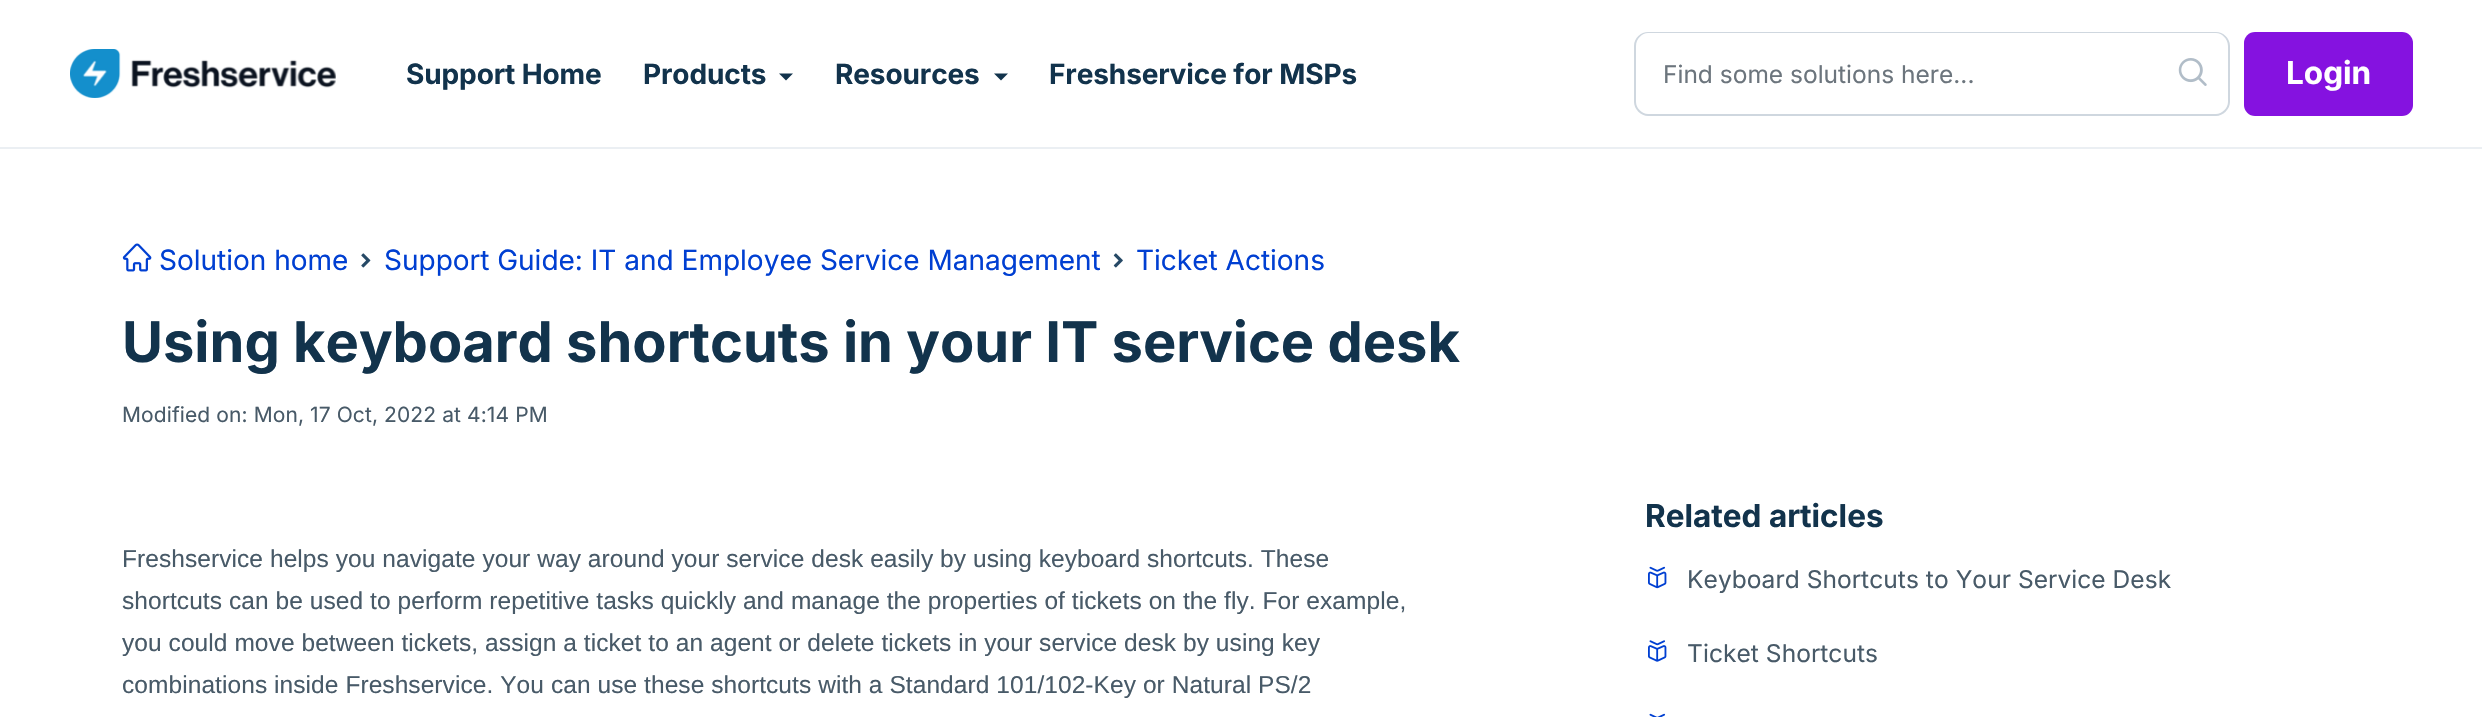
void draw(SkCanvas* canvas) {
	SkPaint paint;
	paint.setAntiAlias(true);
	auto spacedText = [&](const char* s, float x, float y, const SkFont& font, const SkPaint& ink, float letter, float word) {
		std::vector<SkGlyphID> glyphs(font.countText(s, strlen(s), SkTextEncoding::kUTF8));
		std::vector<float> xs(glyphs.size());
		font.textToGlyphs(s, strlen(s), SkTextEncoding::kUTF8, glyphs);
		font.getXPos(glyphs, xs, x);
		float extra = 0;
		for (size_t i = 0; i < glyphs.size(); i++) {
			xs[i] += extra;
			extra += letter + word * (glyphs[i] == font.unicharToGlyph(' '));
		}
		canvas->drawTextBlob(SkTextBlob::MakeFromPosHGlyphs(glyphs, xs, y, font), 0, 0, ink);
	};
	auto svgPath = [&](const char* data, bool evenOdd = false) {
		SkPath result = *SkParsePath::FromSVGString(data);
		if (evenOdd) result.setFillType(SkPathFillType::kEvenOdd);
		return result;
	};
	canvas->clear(0xffffffff);
	paint.setColor(0xffebeff3);
	canvas->drawRect(SkRect::MakeXYWH(0, 147, 2482, 2), paint);
	canvas->drawImageRect(SkImages::DeferredFromEncodedData(SkData::MakeFromFileName("img1.png")), SkRect::MakeXYWH(70, 49, 266, 49), SkSamplingOptions());
	SkFont f1(fontMgr->matchFamilyStyle("Inter", SkFontStyle::Bold()), 28);
	f1.setSubpixel(true);
	paint.setColor(0xff12334c);
	spacedText("Support Home", 406, 84, f1, paint, -0.1, 0);
	spacedText("Products", 643, 84, f1, paint, -0.1, 0);
	canvas->drawPath(svgPath("M779 73.5H793L786 80.5Z"), paint);
	spacedText("Resources", 835, 84, f1, paint, -0.1, 0);
	canvas->drawPath(svgPath("M994 73.5H1008L1001 80.5Z"), paint);
	spacedText("Freshservice for MSPs", 1049, 84, f1, paint, -0.1, 0);
	paint.setColor(0xffcfd7df);
	canvas->drawPath(svgPath("M1648 32H2160V116H1648C1641 116 1634 109 1634 102V46C1634 38 1641 32 1648 32ZM1648 33H2160V114H1648C1642 114 1636 108 1636 102V46C1636 39 1642 33 1648 33Z", true), paint);
	SkFont f2(fontMgr->matchFamilyStyle("Inter", SkFontStyle::Normal()), 24.5);
	f2.setSubpixel(true);
	paint.setColor(0xff6c757d);
	canvas->drawString("Find some solutions here...", 1663, 83, f2, paint);
	paint.setColor(0xffffffff);
	canvas->drawPath(svgPath("M2158 32H2216C2223.5 32 2230 38.5 2230 46V102C2230 109.5 2223.5 116 2216 116H2158Z"), paint);
	paint.setColor(0xffcfd7df);
	canvas->drawPath(svgPath("M2158 32H2216C2223 32 2230 38 2230 46V102C2230 109 2223 116 2216 116H2158ZM2158 33H2216C2222 33 2228 39 2228 46V102C2228 108 2222 114 2216 114H2158Z", true), paint);
	canvas->drawImageRect(SkImages::DeferredFromEncodedData(SkData::MakeFromFileName("img2.png")), SkRect::MakeXYWH(2178, 58, 29, 28), SkSamplingOptions());
	paint.setColor(0xff8512e0);
	canvas->drawRoundRect(SkRect::MakeXYWH(2244, 32, 169, 84), 11, 11, paint);
	SkFont f3(fontMgr->matchFamilyStyle("Inter", SkFontStyle::Bold()), 31.5);
	f3.setSubpixel(true);
	paint.setColor(0xffffffff);
	canvas->drawString("Login", 2286, 84, f3, paint);
	canvas->drawImageRect(SkImages::DeferredFromEncodedData(SkData::MakeFromFileName("img3.png")), SkRect::MakeXYWH(122, 243, 30, 29), SkSamplingOptions());
	SkFont f4(fontMgr->matchFamilyStyle("Inter", SkFontStyle::Normal()), 28);
	f4.setSubpixel(true);
	paint.setColor(0xff003fd2);
	canvas->drawString("Solution home", 159, 270, f4, paint);
	canvas->drawImageRect(SkImages::DeferredFromEncodedData(SkData::MakeFromFileName("img4.png")), SkRect::MakeXYWH(361, 253, 10, 15), SkSamplingOptions());
	canvas->drawString("Support Guide: IT and Employee Service Management", 384, 270, f4, paint);
	canvas->drawImageRect(SkImages::DeferredFromEncodedData(SkData::MakeFromFileName("img5.png")), SkRect::MakeXYWH(1113, 253, 10, 15), SkSamplingOptions());
	canvas->drawString("Ticket Actions", 1136, 270, f4, paint);
	SkFont f5(fontMgr->matchFamilyStyle("Inter", SkFontStyle::Bold()), 56);
	f5.setSubpixel(true);
	paint.setColor(0xff12334c);
	canvas->drawString("Using keyboard shortcuts in your IT service desk", 122, 362, f5, paint);
	SkFont f6(fontMgr->matchFamilyStyle("Inter", SkFontStyle::Normal()), 21);
	f6.setSubpixel(true);
	paint.setColor(0xff485a68);
	spacedText("Modified on: Mon, 17 Oct, 2022 at 4:14 PM", 122, 422, f6, paint, 0.1, 0);
	SkFont f7(fontMgr->matchFamilyStyle("Liberation Sans", SkFontStyle::Normal()), 24.5);
	f7.setSubpixel(true);
	spacedText("Freshservice helps you navigate your way around your service desk easily by using keyboard shortcuts. These", 122, 567, f7, paint, 0.07, 0);
	spacedText("shortcuts can be used to perform repetitive tasks quickly and manage the properties of tickets on the fly. For example,", 122, 609, f7, paint, 0.07, 0);
	spacedText("you could move between tickets, assign a ticket to an agent or delete tickets in your service desk by using key", 122, 651, f7, paint, 0.07, 0);
	spacedText("combinations inside Freshservice. You can use these shortcuts with a Standard 101/102-Key or Natural PS/2", 122, 693, f7, paint, 0.07, 0);
	paint.setColor(0xff12334c);
	canvas->drawString("Related articles", 1645, 527, f3, paint);
	canvas->drawImageRect(SkImages::DeferredFromEncodedData(SkData::MakeFromFileName("img6.png")), SkRect::MakeXYWH(1648, 566, 19, 23), SkSamplingOptions());
	paint.setColor(0xff485a68);
	spacedText("Keyboard Shortcuts to Your Service Desk", 1687, 588, f2, paint, 0.07, 0);
	canvas->drawImageRect(SkImages::DeferredFromEncodedData(SkData::MakeFromFileName("img7.png")), SkRect::MakeXYWH(1648, 640, 19, 22), SkSamplingOptions());
	spacedText("Ticket Shortcuts", 1687, 662, f2, paint, 0.07, 0);
	canvas->drawImageRect(SkImages::DeferredFromEncodedData(SkData::MakeFromFileName("img8.png")), SkRect::MakeXYWH(1649, 713, 17, 4), SkSamplingOptions());
}
